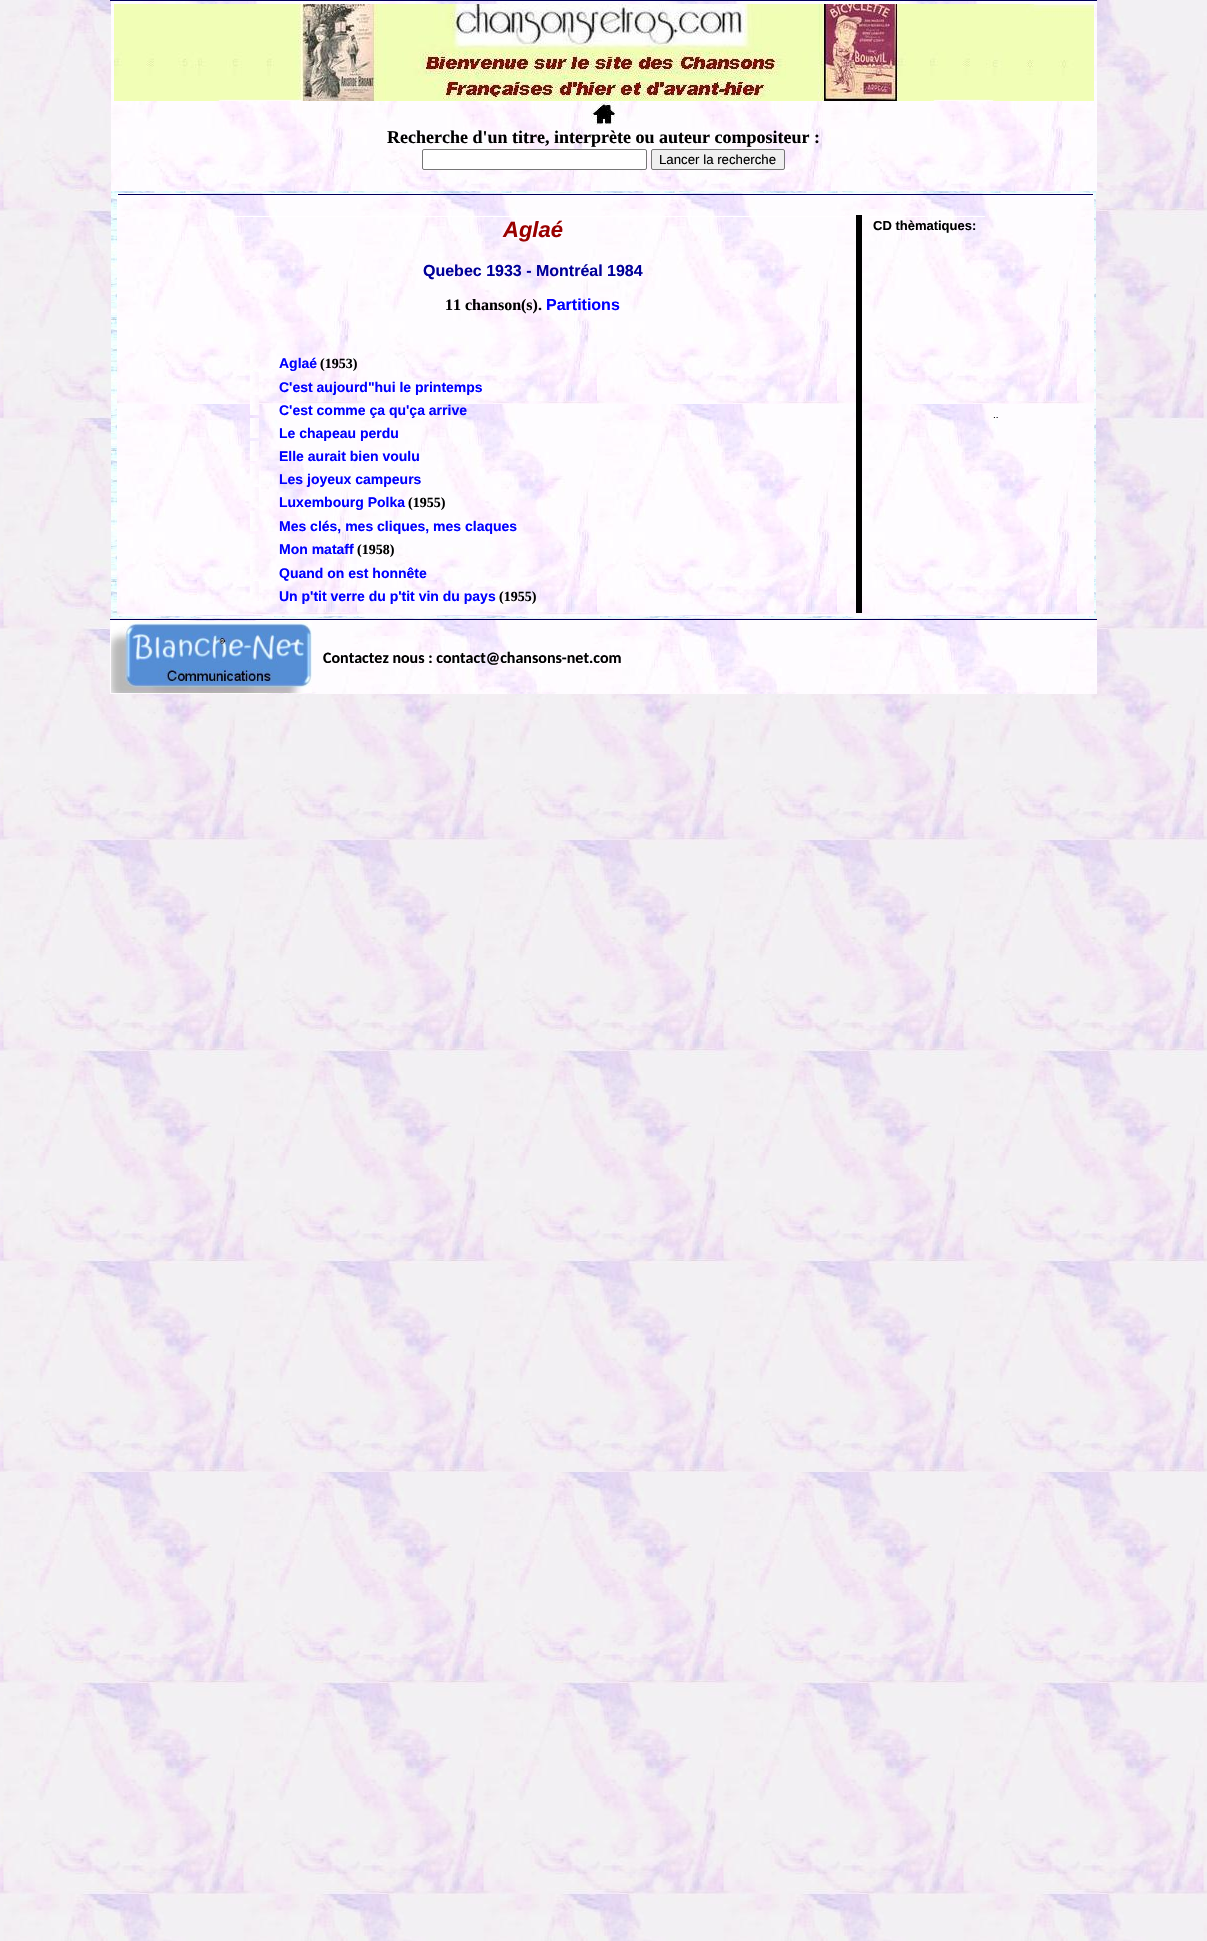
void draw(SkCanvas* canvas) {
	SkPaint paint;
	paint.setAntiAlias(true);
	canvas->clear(0xffffffff);
	canvas->drawImageRect(SkImages::DeferredFromEncodedData(SkData::MakeFromFileName("img1.png")), SkRect::MakeXYWH(0, 0, 1207, 1941), SkSamplingOptions());
	paint.setColor(0xff00005a);
	canvas->drawRect(SkRect::MakeXYWH(110, 0, 987, 1), paint);
	canvas->drawImageRect(SkImages::DeferredFromEncodedData(SkData::MakeFromFileName("img2.png")), SkRect::MakeXYWH(111, 1, 986, 190), SkSamplingOptions());
	canvas->drawImageRect(SkImages::DeferredFromEncodedData(SkData::MakeFromFileName("img3.png")), SkRect::MakeXYWH(114, 4, 980, 97), SkSamplingOptions());
	canvas->drawImageRect(SkImages::DeferredFromEncodedData(SkData::MakeFromFileName("img4.png")), SkRect::MakeXYWH(591, 101, 24, 24), SkSamplingOptions());
	SkFont f1(fontMgr->matchFamilyStyle("Liberation Serif", SkFontStyle::Bold()), 18);
	f1.setSubpixel(true);
	paint.setColor(0xff000000);
	canvas->drawString("Recherche d'un titre, interprète ou auteur compositeur :", 387, 143, f1, paint);
	paint.setColor(0xffffffff);
	canvas->drawRoundRect(SkRect::MakeXYWH(422.5, 149.5, 224, 20), 1.5, 1.5, paint);
	paint.setStroke(true);
	paint.setStrokeWidth(1);
	paint.setColor(0xff767676);
	canvas->drawRoundRect(SkRect::MakeXYWH(422.5, 149.5, 224, 20), 1.5, 1.5, paint);
	paint.setStroke(false);
	paint.setColor(0xffefefef);
	canvas->drawRoundRect(SkRect::MakeXYWH(651.5, 149.5, 133, 20), 1.5, 1.5, paint);
	paint.setStroke(true);
	paint.setColor(0xff767676);
	canvas->drawRoundRect(SkRect::MakeXYWH(651.5, 149.5, 133, 20), 1.5, 1.5, paint);
	SkFont f2(fontMgr->matchFamilyStyle("Liberation Sans", SkFontStyle::Normal()), 13.25);
	f2.setSubpixel(true);
	paint.setStroke(false);
	paint.setColor(0xff000000);
	canvas->drawString("Lancer la recherche", 659, 164, f2, paint);
	canvas->drawImageRect(SkImages::DeferredFromEncodedData(SkData::MakeFromFileName("img5.png")), SkRect::MakeXYWH(111, 191, 985, 427), SkSamplingOptions());
	canvas->drawImageRect(SkImages::DeferredFromEncodedData(SkData::MakeFromFileName("img6.png")), SkRect::MakeXYWH(117, 193, 977, 423), SkSamplingOptions());
	paint.setColor(0xff00005a);
	canvas->drawRect(SkRect::MakeXYWH(118, 194, 975, 1), paint);
	paint.setColor(0xffffffff);
	canvas->drawRect(SkRect::MakeXYWH(230, 216, 615, 1), paint);
	SkFont f3(fontMgr->matchFamilyStyle("Liberation Sans", SkFontStyle::BoldItalic()), 22);
	f3.setSubpixel(true);
	paint.setColor(0xff990000);
	canvas->drawString("Aglaé", 503, 237, f3, paint);
	SkFont f4(fontMgr->matchFamilyStyle("Liberation Sans", SkFontStyle::Bold()), 16);
	f4.setSubpixel(true);
	paint.setColor(0xff000099);
	canvas->drawString("Quebec 1933 - Montréal 1984", 423, 276, f4, paint);
	SkFont f5(fontMgr->matchFamilyStyle("Liberation Serif", SkFontStyle::Bold()), 16);
	f5.setSubpixel(true);
	paint.setColor(0xff000000);
	canvas->drawString("11 chanson(s).", 445, 310, f5, paint);
	paint.setColor(0xff0000ff);
	canvas->drawString("Partitions", 546, 310, f4, paint);
	canvas->drawImageRect(SkImages::DeferredFromEncodedData(SkData::MakeFromFileName("img7.png")), SkRect::MakeXYWH(250, 349, 9, 19), SkSamplingOptions());
	SkFont f6(fontMgr->matchFamilyStyle("Liberation Sans", SkFontStyle::Bold()), 14);
	f6.setSubpixel(true);
	canvas->drawString("Aglaé", 279, 368, f6, paint);
	SkFont f7(fontMgr->matchFamilyStyle("Liberation Serif", SkFontStyle::Bold()), 14);
	f7.setSubpixel(true);
	paint.setColor(0xff000000);
	canvas->drawString("(1953)", 320, 368, f7, paint);
	canvas->drawImageRect(SkImages::DeferredFromEncodedData(SkData::MakeFromFileName("img8.png")), SkRect::MakeXYWH(250, 372, 9, 20), SkSamplingOptions());
	paint.setColor(0xff0000ff);
	canvas->drawString("C'est aujourd\"hui le printemps", 279, 392, f6, paint);
	canvas->drawImageRect(SkImages::DeferredFromEncodedData(SkData::MakeFromFileName("img8.png")), SkRect::MakeXYWH(250, 395, 9, 20), SkSamplingOptions());
	canvas->drawString("C'est comme ça qu'ça arrive", 279, 415, f6, paint);
	canvas->drawImageRect(SkImages::DeferredFromEncodedData(SkData::MakeFromFileName("img8.png")), SkRect::MakeXYWH(250, 418, 9, 20), SkSamplingOptions());
	canvas->drawString("Le chapeau perdu", 279, 438, f6, paint);
	canvas->drawImageRect(SkImages::DeferredFromEncodedData(SkData::MakeFromFileName("img8.png")), SkRect::MakeXYWH(250, 441, 9, 20), SkSamplingOptions());
	canvas->drawString("Elle aurait bien voulu", 279, 461, f6, paint);
	canvas->drawImageRect(SkImages::DeferredFromEncodedData(SkData::MakeFromFileName("img8.png")), SkRect::MakeXYWH(250, 464, 9, 20), SkSamplingOptions());
	canvas->drawString("Les joyeux campeurs", 279, 484, f6, paint);
	canvas->drawImageRect(SkImages::DeferredFromEncodedData(SkData::MakeFromFileName("img9.png")), SkRect::MakeXYWH(252, 487, 7, 20), SkSamplingOptions());
	canvas->drawString("Luxembourg Polka", 279, 507, f6, paint);
	paint.setColor(0xff000000);
	canvas->drawString("(1955)", 408, 507, f7, paint);
	canvas->drawImageRect(SkImages::DeferredFromEncodedData(SkData::MakeFromFileName("img8.png")), SkRect::MakeXYWH(250, 511, 9, 20), SkSamplingOptions());
	paint.setColor(0xff0000ff);
	canvas->drawString("Mes clés, mes cliques, mes claques", 279, 531, f6, paint);
	canvas->drawImageRect(SkImages::DeferredFromEncodedData(SkData::MakeFromFileName("img10.png")), SkRect::MakeXYWH(250, 534, 9, 14), SkSamplingOptions());
	canvas->drawString("Mon mataff", 279, 554, f6, paint);
	paint.setColor(0xff000000);
	canvas->drawString("(1958)", 357, 554, f7, paint);
	canvas->drawImageRect(SkImages::DeferredFromEncodedData(SkData::MakeFromFileName("img7.png")), SkRect::MakeXYWH(250, 559, 9, 19), SkSamplingOptions());
	paint.setColor(0xff0000ff);
	canvas->drawString("Quand on est honnête", 279, 578, f6, paint);
	canvas->drawImageRect(SkImages::DeferredFromEncodedData(SkData::MakeFromFileName("img8.png")), SkRect::MakeXYWH(250, 581, 9, 20), SkSamplingOptions());
	canvas->drawString("Un p'tit verre du p'tit vin du pays", 279, 601, f6, paint);
	paint.setColor(0xff000000);
	canvas->drawString("(1955)", 499, 601, f7, paint);
	canvas->drawRect(SkRect::MakeXYWH(856, 215, 6, 398), paint);
	paint.setColor(0xffffffff);
	canvas->drawRect(SkRect::MakeXYWH(869, 216, 116, 1), paint);
	SkFont f8(fontMgr->matchFamilyStyle("Liberation Sans", SkFontStyle::Bold()), 13);
	f8.setSubpixel(true);
	paint.setColor(0xff000000);
	canvas->drawString("CD thèmatiques:", 873, 230, f8, paint);
	SkFont f9(fontMgr->matchFamilyStyle("Liberation Sans", SkFontStyle::Normal()), 10);
	f9.setSubpixel(true);
	canvas->drawString("..", 993, 418, f9, paint);
	paint.setColor(0xff00005a);
	canvas->drawRect(SkRect::MakeXYWH(110, 619, 987, 1), paint);
	canvas->drawImageRect(SkImages::DeferredFromEncodedData(SkData::MakeFromFileName("img11.png")), SkRect::MakeXYWH(110, 620, 987, 74), SkSamplingOptions());
	canvas->drawImageRect(SkImages::DeferredFromEncodedData(SkData::MakeFromFileName("img12.png")), SkRect::MakeXYWH(111, 621, 201, 72), SkSamplingOptions());
	SkFont f10(fontMgr->matchFamilyStyle("Carlito", SkFontStyle::Bold()), 16);
	f10.setSubpixel(true);
	paint.setColor(0xff000000);
	canvas->drawString("Contactez nous : contact@chansons-net.com", 323, 663, f10, paint);
}
